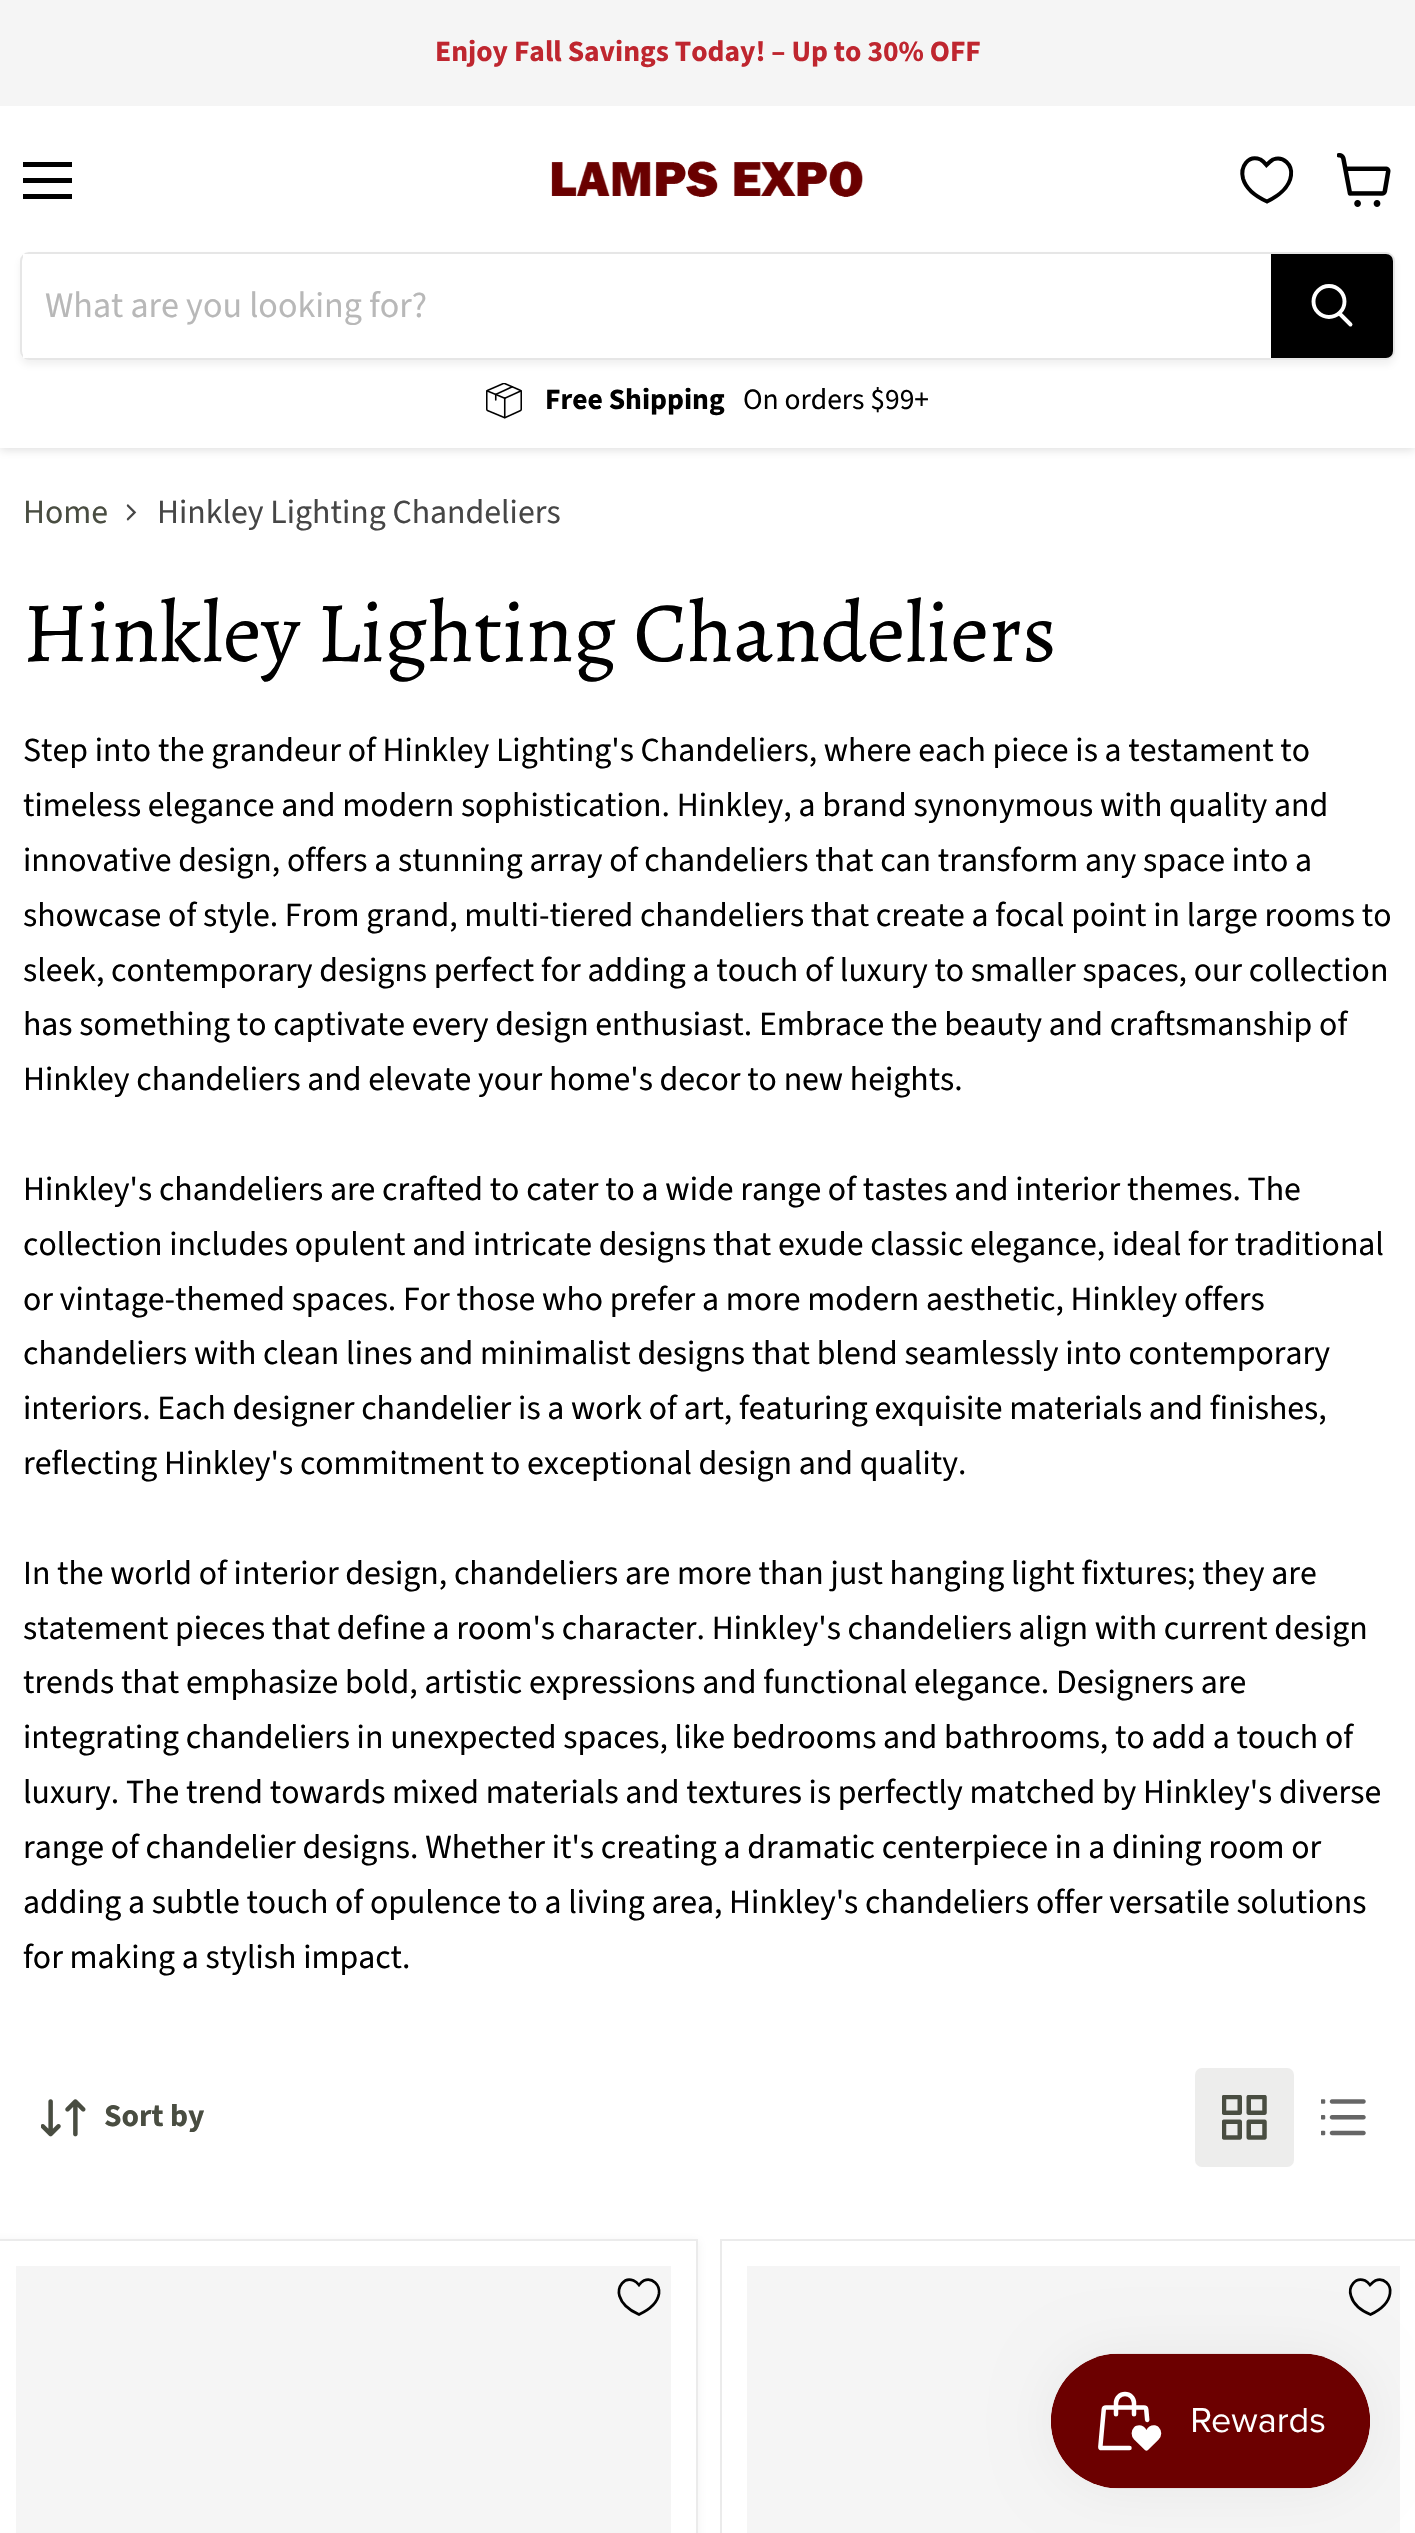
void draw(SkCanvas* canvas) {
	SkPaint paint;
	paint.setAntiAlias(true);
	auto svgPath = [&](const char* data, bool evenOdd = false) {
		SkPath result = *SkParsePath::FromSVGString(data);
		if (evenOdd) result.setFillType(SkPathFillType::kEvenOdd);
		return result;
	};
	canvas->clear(0xffffffff);
	paint.setColor(0x40808080);
	paint.setMaskFilter(SkMaskFilter::MakeBlur(kNormal_SkBlurStyle, 4.5));
	canvas->drawRect(SkRect::MakeXYWH(0, 108, 1415, 342), paint);
	paint.setMaskFilter(nullptr);
	paint.setColor(0xfff5f5f5);
	canvas->drawRect(SkRect::MakeXYWH(0, 0, 1415, 106), paint);
	SkFont f1(fontMgr->matchFamilyStyle("Source Sans Pro", SkFontStyle::Bold()), 29.5);
	f1.setSubpixel(true);
	paint.setColor(0xffbf262f);
	canvas->drawString("Enjoy Fall Savings Today! – Up to 30% OFF", 435, 61, f1, paint);
	paint.setColor(0xffffffff);
	canvas->drawRect(SkRect::MakeXYWH(0, 106, 1415, 342), paint);
	paint.setColor(0xff000000);
	canvas->drawRect(SkRect::MakeXYWH(23, 162, 49, 5), paint);
	canvas->drawRect(SkRect::MakeXYWH(23, 178, 49, 5), paint);
	canvas->drawRect(SkRect::MakeXYWH(23, 194, 49, 5), paint);
	paint.setStroke(true);
	paint.setStrokeWidth(4);
	canvas->drawPath(svgPath("M1267 201.5C1257 197 1246 189 1243 178.5C1240 167 1248 154.5 1260.5 159.5C1263 161 1265 163 1266.5 165C1268.5 163 1270.5 161 1273 159.5C1283.5 155.5 1292.5 165 1291 175.5C1289.5 187.5 1277.5 196.5 1267 201.5Z"), paint);
	canvas->drawImageRect(SkImages::DeferredFromEncodedData(SkData::MakeFromFileName("img1.png")), SkRect::MakeXYWH(1337, 153, 54, 54), SkSamplingOptions());
	canvas->drawImageRect(SkImages::DeferredFromEncodedData(SkData::MakeFromFileName("img2.png")), SkRect::MakeXYWH(551, 160, 312, 37), SkSamplingOptions());
	canvas->save();
	canvas->clipPath(svgPath("M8 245H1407V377H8ZM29 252H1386C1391 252 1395 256 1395 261V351C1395 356 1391 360 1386 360H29C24 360 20 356 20 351V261C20 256 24 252 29 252Z", true), true);
	paint.setStroke(false);
	paint.setColor(0x1c808080);
	paint.setMaskFilter(SkMaskFilter::MakeBlur(kNormal_SkBlurStyle, 3.5));
	canvas->drawRoundRect(SkRect::MakeXYWH(20, 257, 1375, 108), 9, 9, paint);
	paint.setMaskFilter(nullptr);
	canvas->restore();
	paint.setStroke(true);
	paint.setStrokeWidth(2);
	paint.setColor(0x33808080);
	canvas->drawRoundRect(SkRect::MakeXYWH(21, 253, 1373, 106), 8, 8, paint);
	paint.setStroke(false);
	paint.setColor(0xffffffff);
	canvas->drawRect(SkRect::MakeXYWH(23, 254, 5, 104), paint);
	SkFont f2(fontMgr->matchFamilyStyle("Source Sans Pro", SkFontStyle::Normal()), 36);
	f2.setSubpixel(true);
	paint.setColor(0xffb8b8b8);
	canvas->drawString("What are you looking for?", 45, 317, f2, paint);
	paint.setColor(0xff000000);
	canvas->drawPath(svgPath("M1272 255H1386C1389.5 255 1392 257.5 1392 261V351C1392 354.5 1389.5 357 1386 357H1272Z"), paint);
	paint.setStroke(true);
	canvas->drawPath(svgPath("M1272 255H1386C1389.5 255 1392 257.5 1392 261V351C1392 354.5 1389.5 357 1386 357H1272Z"), paint);
	paint.setStrokeWidth(3.9);
	paint.setStrokeCap(SkPaint::kRound_Cap);
	paint.setColor(0xffffffff);
	canvas->drawPath(svgPath("M1350.5 324.5L1340 314"), paint);
	paint.setStrokeCap(SkPaint::kButt_Cap);
	canvas->drawCircle(1329, 301.5, 15.5, paint);
	canvas->drawImageRect(SkImages::DeferredFromEncodedData(SkData::MakeFromFileName("img3.png")), SkRect::MakeXYWH(486, 383, 36, 36), SkSamplingOptions());
	paint.setStroke(false);
	paint.setColor(0xff000000);
	canvas->drawString("Free Shipping", 545, 409, f1, paint);
	SkFont f3(fontMgr->matchFamilyStyle("Source Sans Pro", SkFontStyle::Normal()), 29.5);
	f3.setSubpixel(true);
	canvas->drawString("On orders $99+", 743, 409, f3, paint);
	SkFont f4(fontMgr->matchFamilyStyle("Source Sans Pro", SkFontStyle::Normal()), 33.75);
	f4.setSubpixel(true);
	paint.setColor(0xff494d41);
	canvas->drawString("Home", 23, 523, f4, paint);
	canvas->drawImageRect(SkImages::DeferredFromEncodedData(SkData::MakeFromFileName("img4.png")), SkRect::MakeXYWH(126, 504, 11, 17), SkSamplingOptions());
	paint.setColor(0xff464646);
	canvas->drawString("Hinkley Lighting Chandeliers", 157, 523, f4, paint);
	SkFont f5(fontMgr->matchFamilyStyle("Alegreya", SkFontStyle::Normal()), 86);
	f5.setSubpixel(true);
	paint.setColor(0xff000000);
	canvas->drawString("Hinkley Lighting Chandeliers", 23, 661, f5, paint);
	canvas->drawString("Step into the grandeur of Hinkley Lighting's Chandeliers, where each piece is a testament to", 23, 761, f4, paint);
	canvas->drawString("timeless elegance and modern sophistication. Hinkley, a brand synonymous with quality and", 23, 816, f4, paint);
	canvas->drawString("innovative design, offers a stunning array of chandeliers that can transform any space into a", 23, 871, f4, paint);
	canvas->drawString("showcase of style. From grand, multi-tiered chandeliers that create a focal point in large rooms to", 23, 926, f4, paint);
	canvas->drawString("sleek, contemporary designs perfect for adding a touch of luxury to smaller spaces, our collection", 23, 981, f4, paint);
	canvas->drawString("has something to captivate every design enthusiast. Embrace the beauty and craftsmanship of", 23, 1035, f4, paint);
	canvas->drawString("Hinkley chandeliers and elevate your home's decor to new heights.", 23, 1090, f4, paint);
	canvas->drawString("Hinkley's chandeliers are crafted to cater to a wide range of tastes and interior themes. The", 23, 1200, f4, paint);
	canvas->drawString("collection includes opulent and intricate designs that exude classic elegance, ideal for traditional", 23, 1255, f4, paint);
	canvas->drawString("or vintage-themed spaces. For those who prefer a more modern aesthetic, Hinkley offers", 23, 1310, f4, paint);
	canvas->drawString("chandeliers with clean lines and minimalist designs that blend seamlessly into contemporary", 23, 1364, f4, paint);
	canvas->drawString("interiors. Each designer chandelier is a work of art, featuring exquisite materials and finishes,", 23, 1419, f4, paint);
	canvas->drawString("reflecting Hinkley's commitment to exceptional design and quality.", 23, 1474, f4, paint);
	canvas->drawString("In the world of interior design, chandeliers are more than just hanging light fixtures; they are", 23, 1584, f4, paint);
	canvas->drawString("statement pieces that define a room's character. Hinkley's chandeliers align with current design", 23, 1639, f4, paint);
	canvas->drawString("trends that emphasize bold, artistic expressions and functional elegance. Designers are", 23, 1693, f4, paint);
	canvas->drawString("integrating chandeliers in unexpected spaces, like bedrooms and bathrooms, to add a touch of", 23, 1748, f4, paint);
	canvas->drawString("luxury. The trend towards mixed materials and textures is perfectly matched by Hinkley's diverse", 23, 1803, f4, paint);
	canvas->drawString("range of chandelier designs. Whether it's creating a dramatic centerpiece in a dining room or", 23, 1858, f4, paint);
	canvas->drawString("adding a subtle touch of opulence to a living area, Hinkley's chandeliers offer versatile solutions", 23, 1913, f4, paint);
	canvas->drawString("for making a stylish impact.", 23, 1968, f4, paint);
	canvas->drawImageRect(SkImages::DeferredFromEncodedData(SkData::MakeFromFileName("img5.png")), SkRect::MakeXYWH(41, 2099, 45, 38), SkSamplingOptions());
	SkFont f6(fontMgr->matchFamilyStyle("Source Sans Pro", SkFontStyle::Bold()), 31.5);
	f6.setSubpixel(true);
	paint.setColor(0xff494d41);
	canvas->drawString("Sort by", 104, 2126, f6, paint);
	paint.setColor(0xffededec);
	canvas->drawRoundRect(SkRect::MakeXYWH(1195, 2068, 99, 99), 7, 7, paint);
	canvas->drawImageRect(SkImages::DeferredFromEncodedData(SkData::MakeFromFileName("img6.png")), SkRect::MakeXYWH(1222, 2095, 45, 45), SkSamplingOptions());
	canvas->drawImageRect(SkImages::DeferredFromEncodedData(SkData::MakeFromFileName("img7.png")), SkRect::MakeXYWH(1321, 2099, 45, 37), SkSamplingOptions());
	paint.setColor(0x1c808080);
	paint.setMaskFilter(SkMaskFilter::MakeBlur(kNormal_SkBlurStyle, 4.5));
	canvas->drawRect(SkRect::MakeXYWH(-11, 2241, 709, 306), paint);
	paint.setMaskFilter(nullptr);
	paint.setColor(0xffffffff);
	canvas->drawRect(SkRect::MakeXYWH(-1, 2240, 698, 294), paint);
	paint.setStroke(true);
	paint.setStrokeWidth(2);
	paint.setColor(0xffebebeb);
	canvas->drawRect(SkRect::MakeXYWH(-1, 2240, 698, 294), paint);
	paint.setStroke(false);
	paint.setColor(0xfff5f5f5);
	canvas->drawRect(SkRect::MakeXYWH(16, 2266, 655, 267), paint);
	paint.setStroke(true);
	paint.setStrokeWidth(2.7);
	paint.setColor(0xff000000);
	canvas->drawPath(svgPath("M639 2314.5C631 2311 622 2304.5 619.5 2296C617 2287 624 2276.5 633.5 2280.5C636 2281.5 637.5 2283 639 2285C640.5 2283 642 2281.5 644 2280.5C652.5 2277 660 2285 659 2293.5C657.5 2303.5 647.5 2310.5 639 2314.5Z"), paint);
	paint.setStrokeWidth(2);
	paint.setColor(0xffebebeb);
	canvas->drawRect(SkRect::MakeXYWH(721, 2240, 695, 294), paint);
	paint.setStroke(false);
	paint.setColor(0xfff5f5f5);
	canvas->drawRect(SkRect::MakeXYWH(747, 2266, 653, 267), paint);
	paint.setStroke(true);
	paint.setStrokeWidth(2.7);
	paint.setColor(0xff000000);
	canvas->drawPath(svgPath("M1370.5 2314.5C1362 2311 1353.5 2304.5 1351 2296C1348 2287 1355 2276.5 1365 2280.5C1367 2281.5 1368.5 2283 1370 2285C1372 2283 1373.5 2281.5 1375.5 2280.5C1384 2277 1391.5 2285 1390 2293.5C1388.5 2303.5 1379 2310.5 1370.5 2314.5Z"), paint);
	paint.setStroke(false);
	paint.setColor(0x0d000000);
	paint.setMaskFilter(SkMaskFilter::MakeBlur(kNormal_SkBlurStyle, 28));
	canvas->drawRoundRect(SkRect::MakeXYWH(1051, 2354, 319, 135), 67.5, 67.5, paint);
	paint.setMaskFilter(nullptr);
	canvas->drawImageRect(SkImages::DeferredFromEncodedData(SkData::MakeFromFileName("img8.png")), SkRect::MakeXYWH(1051, 2353, 319, 136), SkSamplingOptions());
}
